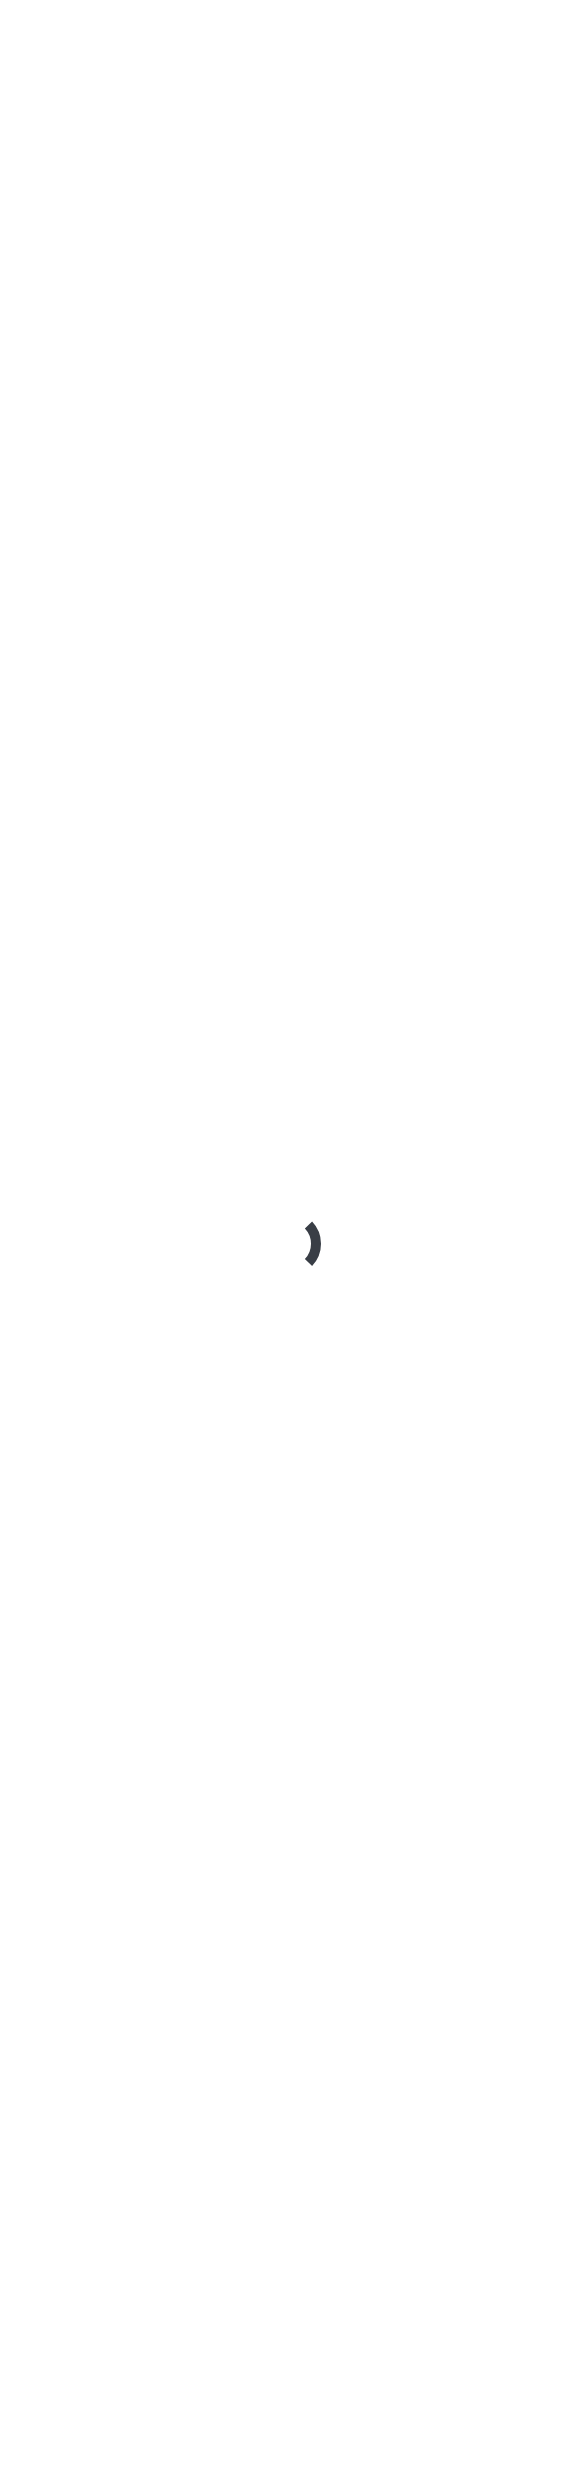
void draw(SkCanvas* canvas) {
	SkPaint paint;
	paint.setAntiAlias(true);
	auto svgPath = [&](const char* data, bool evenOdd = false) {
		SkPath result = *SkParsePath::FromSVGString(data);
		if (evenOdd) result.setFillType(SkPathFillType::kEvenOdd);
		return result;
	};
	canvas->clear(0xffffffff);
	paint.setStroke(true);
	paint.setStrokeWidth(10);
	paint.setColor(0xff393e46);
	canvas->drawPath(svgPath("M308.5 1225C318.5 1235.5 318.5 1252 308.5 1262.5M308.5 1225C318.5 1235.5 318.5 1252 308.5 1262.5M308.5 1225C318.5 1235.5 318.5 1252 308.5 1262.5"), paint);
}
